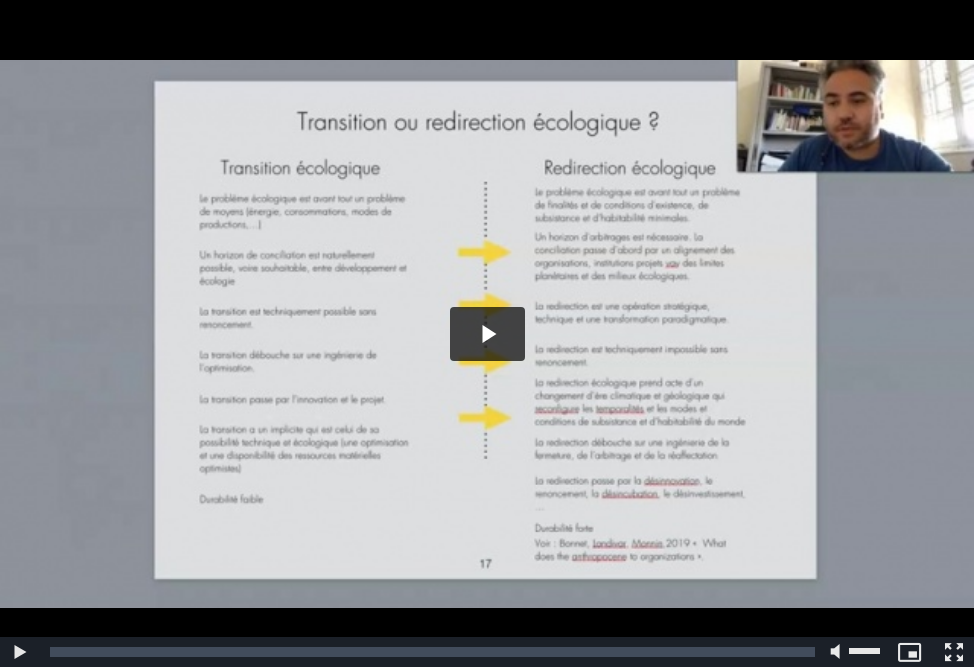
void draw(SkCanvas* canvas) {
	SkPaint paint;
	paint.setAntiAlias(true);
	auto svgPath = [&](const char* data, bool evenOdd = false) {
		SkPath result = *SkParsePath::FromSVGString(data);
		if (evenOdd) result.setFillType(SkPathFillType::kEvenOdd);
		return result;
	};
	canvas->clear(0xff000000);
	canvas->drawImageRect(SkImages::DeferredFromEncodedData(SkData::MakeFromFileName("img1.png")), SkRect::MakeXYWH(0, 60, 974, 548), SkSamplingOptions());
	paint.setColor(0xb3000000);
	canvas->drawRoundRect(SkRect::MakeXYWH(450, 307, 75, 54), 4, 4, paint);
	paint.setColor(0xffffffff);
	canvas->drawPath(svgPath("M482.5 325V343L496.5 334Z"), paint);
	paint.setColor(0xff1b2028);
	canvas->drawRect(SkRect::MakeXYWH(0, 637, 974, 30), paint);
	paint.setColor(0xffe6e6e6);
	canvas->drawPath(svgPath("M14.5 652V645L26.5 652L14.5 659Z"), paint);
	paint.setColor(0xff424c5c);
	canvas->drawRect(SkRect::MakeXYWH(50, 647, 765, 10), paint);
	canvas->drawImageRect(SkImages::DeferredFromEncodedData(SkData::MakeFromFileName("img2.png")), SkRect::MakeXYWH(830, 644, 10, 15), SkSamplingOptions());
	paint.setColor(0xffe6e6e6);
	canvas->drawRect(SkRect::MakeXYWH(849, 648, 31, 6), paint);
	canvas->drawImageRect(SkImages::DeferredFromEncodedData(SkData::MakeFromFileName("img3.png")), SkRect::MakeXYWH(898, 642, 24, 20), SkSamplingOptions());
	canvas->drawImageRect(SkImages::DeferredFromEncodedData(SkData::MakeFromFileName("img4.png")), SkRect::MakeXYWH(945, 643, 18, 19), SkSamplingOptions());
}
